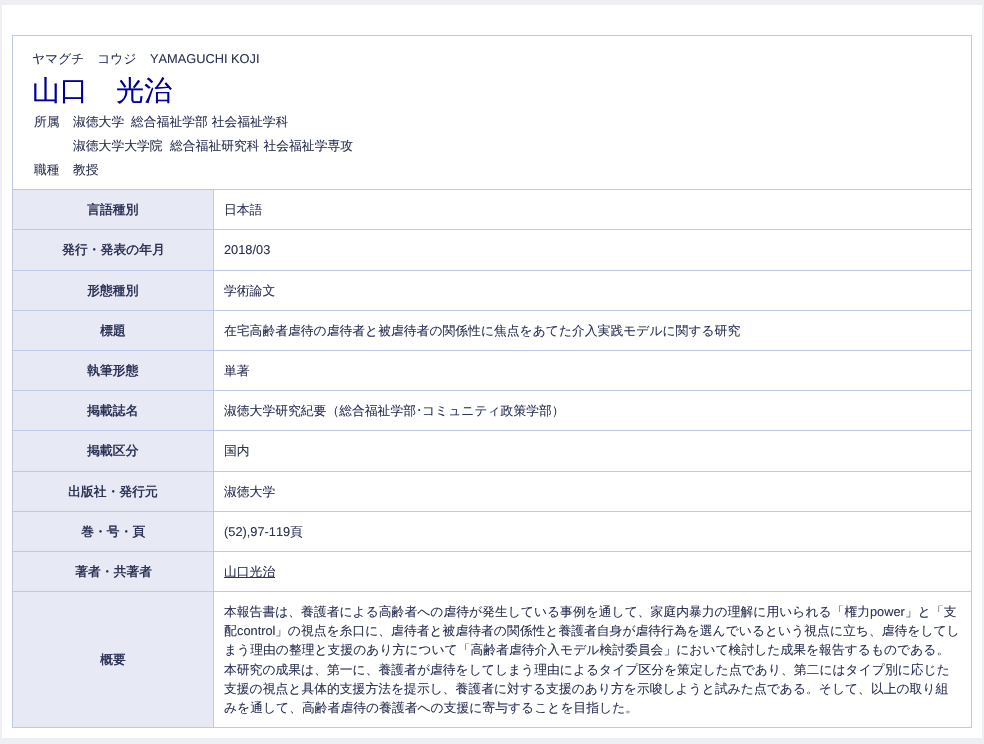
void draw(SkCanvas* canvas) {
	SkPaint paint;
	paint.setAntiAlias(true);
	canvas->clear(0xffeeeff3);
	paint.setColor(0xffffffff);
	canvas->drawRect(SkRect::MakeXYWH(2, 5, 980, 733), paint);
	paint.setColor(0xffbfc8e7);
	canvas->drawRect(SkRect::MakeXYWH(12, 35, 960, 693), paint);
	paint.setColor(0xffffffff);
	canvas->drawRect(SkRect::MakeXYWH(13, 36, 958, 153), paint);
	SkFont f1(fontMgr->matchFamilyStyle("WenQuanYi Zen Hei", SkFontStyle(500, SkFontStyle::kNormal_Width, SkFontStyle::kUpright_Slant)), 12.8);
	f1.setSubpixel(true);
	paint.setColor(0xff2c3356);
	canvas->drawString("ヤマグチ　コウジ", 32, 63, f1, paint);
	SkFont f2(fontMgr->matchFamilyStyle("Liberation Sans", SkFontStyle::Normal()), 12.8);
	f2.setSubpixel(true);
	canvas->drawString("YAMAGUCHI KOJI", 150, 63, f2, paint);
	SkFont f3(fontMgr->matchFamilyStyle("WenQuanYi Zen Hei", SkFontStyle(500, SkFontStyle::kNormal_Width, SkFontStyle::kUpright_Slant)), 28);
	f3.setSubpixel(true);
	paint.setColor(0xff000099);
	canvas->drawString("山口　光治", 32, 100, f3, paint);
	paint.setColor(0xff2c3356);
	canvas->drawString("所属", 34, 126, f1, paint);
	canvas->drawString("淑徳大学", 73, 126, f1, paint);
	canvas->drawString("総合福祉学部 社会福祉学科", 131, 126, f1, paint);
	canvas->drawString("淑徳大学大学院", 73, 150, f1, paint);
	canvas->drawString("総合福祉研究科 社会福祉学専攻", 170, 150, f1, paint);
	canvas->drawString("職種", 34, 174, f1, paint);
	canvas->drawString("教授", 73, 174, f1, paint);
	paint.setColor(0xffe7e9f4);
	canvas->drawRect(SkRect::MakeXYWH(13, 190, 200, 39), paint);
	SkFont f4(fontMgr->matchFamilyStyle("WenQuanYi Zen Hei", SkFontStyle::Bold()), 12.8);
	f4.setSubpixel(true);
	paint.setColor(0xff2c3356);
	canvas->drawString("言語種別", 87, 214, f4, paint);
	paint.setColor(0xffffffff);
	canvas->drawRect(SkRect::MakeXYWH(214, 190, 757, 39), paint);
	paint.setColor(0xff2c3356);
	canvas->drawString("日本語", 224, 214, f1, paint);
	paint.setColor(0xffe7e9f4);
	canvas->drawRect(SkRect::MakeXYWH(13, 230, 200, 40), paint);
	paint.setColor(0xff2c3356);
	canvas->drawString("発行・発表の年月", 62, 254, f4, paint);
	paint.setColor(0xffffffff);
	canvas->drawRect(SkRect::MakeXYWH(214, 230, 757, 40), paint);
	paint.setColor(0xff2c3356);
	canvas->drawString("2018/03", 224, 254, f2, paint);
	paint.setColor(0xffe7e9f4);
	canvas->drawRect(SkRect::MakeXYWH(13, 271, 200, 39), paint);
	paint.setColor(0xff2c3356);
	canvas->drawString("形態種別", 87, 295, f4, paint);
	paint.setColor(0xffffffff);
	canvas->drawRect(SkRect::MakeXYWH(214, 271, 757, 39), paint);
	paint.setColor(0xff2c3356);
	canvas->drawString("学術論文", 224, 295, f1, paint);
	paint.setColor(0xffe7e9f4);
	canvas->drawRect(SkRect::MakeXYWH(13, 311, 200, 39), paint);
	paint.setColor(0xff2c3356);
	canvas->drawString("標題", 100, 335, f4, paint);
	paint.setColor(0xffffffff);
	canvas->drawRect(SkRect::MakeXYWH(214, 311, 757, 39), paint);
	paint.setColor(0xff2c3356);
	canvas->drawString("在宅高齢者虐待の虐待者と被虐待者の関係性に焦点をあてた介入実践モデルに関する研究", 224, 335, f1, paint);
	paint.setColor(0xffe7e9f4);
	canvas->drawRect(SkRect::MakeXYWH(13, 351, 200, 39), paint);
	paint.setColor(0xff2c3356);
	canvas->drawString("執筆形態", 87, 375, f4, paint);
	paint.setColor(0xffffffff);
	canvas->drawRect(SkRect::MakeXYWH(214, 351, 757, 39), paint);
	paint.setColor(0xff2c3356);
	canvas->drawString("単著", 224, 375, f1, paint);
	paint.setColor(0xffe7e9f4);
	canvas->drawRect(SkRect::MakeXYWH(13, 391, 200, 39), paint);
	paint.setColor(0xff2c3356);
	canvas->drawString("掲載誌名", 87, 415, f4, paint);
	paint.setColor(0xffffffff);
	canvas->drawRect(SkRect::MakeXYWH(214, 391, 757, 39), paint);
	paint.setColor(0xff2c3356);
	canvas->drawString("淑徳大学研究紀要（総合福祉学部", 224, 415, f1, paint);
	SkFont f5(fontMgr->matchFamilyStyle("IPAPGothic", SkFontStyle::Normal()), 12.8);
	f5.setSubpixel(true);
	canvas->drawString("･", 416, 415, f5, paint);
	canvas->drawString("コミュニティ政策学部）", 422, 415, f1, paint);
	paint.setColor(0xffe7e9f4);
	canvas->drawRect(SkRect::MakeXYWH(13, 431, 200, 40), paint);
	paint.setColor(0xff2c3356);
	canvas->drawString("掲載区分", 87, 455, f4, paint);
	paint.setColor(0xffffffff);
	canvas->drawRect(SkRect::MakeXYWH(214, 431, 757, 40), paint);
	paint.setColor(0xff2c3356);
	canvas->drawString("国内", 224, 455, f1, paint);
	paint.setColor(0xffe7e9f4);
	canvas->drawRect(SkRect::MakeXYWH(13, 472, 200, 39), paint);
	paint.setColor(0xff2c3356);
	canvas->drawString("出版社・発行元", 68, 496, f4, paint);
	paint.setColor(0xffffffff);
	canvas->drawRect(SkRect::MakeXYWH(214, 472, 757, 39), paint);
	paint.setColor(0xff2c3356);
	canvas->drawString("淑徳大学", 224, 496, f1, paint);
	paint.setColor(0xffe7e9f4);
	canvas->drawRect(SkRect::MakeXYWH(13, 512, 200, 39), paint);
	paint.setColor(0xff2c3356);
	canvas->drawString("巻・号・頁", 81, 536, f4, paint);
	paint.setColor(0xffffffff);
	canvas->drawRect(SkRect::MakeXYWH(214, 512, 757, 39), paint);
	paint.setColor(0xff2c3356);
	canvas->drawString("(52),97-119", 224, 536, f2, paint);
	canvas->drawString("頁", 290, 536, f1, paint);
	paint.setColor(0xffe7e9f4);
	canvas->drawRect(SkRect::MakeXYWH(13, 552, 200, 39), paint);
	paint.setColor(0xff2c3356);
	canvas->drawString("著者・共著者", 75, 576, f4, paint);
	paint.setColor(0xffffffff);
	canvas->drawRect(SkRect::MakeXYWH(214, 552, 757, 39), paint);
	paint.setColor(0xff2c3356);
	canvas->drawRect(SkRect::MakeXYWH(224, 577, 51, 1), paint);
	canvas->drawString("山口光治", 224, 576, f1, paint);
	paint.setColor(0xffe7e9f4);
	canvas->drawRect(SkRect::MakeXYWH(13, 592, 200, 135), paint);
	paint.setColor(0xff2c3356);
	canvas->drawString("概要", 100, 664, f4, paint);
	paint.setColor(0xffffffff);
	canvas->drawRect(SkRect::MakeXYWH(214, 592, 757, 135), paint);
	paint.setColor(0xff2c3356);
	canvas->drawString("本報告書は、養護者による高齢者への虐待が発生している事例を通して、家庭内暴力の理解に用いられる「権力", 224, 616, f1, paint);
	canvas->drawString("power", 870, 616, f2, paint);
	canvas->drawString("」と「支", 905, 616, f1, paint);
	canvas->drawString("配", 224, 635, f1, paint);
	canvas->drawString("control", 237, 635, f2, paint);
	canvas->drawString("」の視点を糸口に、虐待者と被虐待者の関係性と養護者自身が虐待行為を選んでいるという視点に立ち、虐待をしてし", 275, 635, f1, paint);
	canvas->drawString("まう理由の整理と支援のあり方について「高齢者虐待介入モデル検討委員会」において検討した成果を報告するものである。", 224, 654, f1, paint);
	canvas->drawString("本研究の成果は、第一に、養護者が虐待をしてしまう理由によるタイプ区分を策定した点であり、第二にはタイプ別に応じた", 224, 674, f1, paint);
	canvas->drawString("支援の視点と具体的支援方法を提示し、養護者に対する支援のあり方を示唆しようと試みた点である。そして、以上の取り組", 224, 693, f1, paint);
	canvas->drawString("みを通して、高齢者虐待の養護者への支援に寄与することを目指した。", 224, 712, f1, paint);
}
